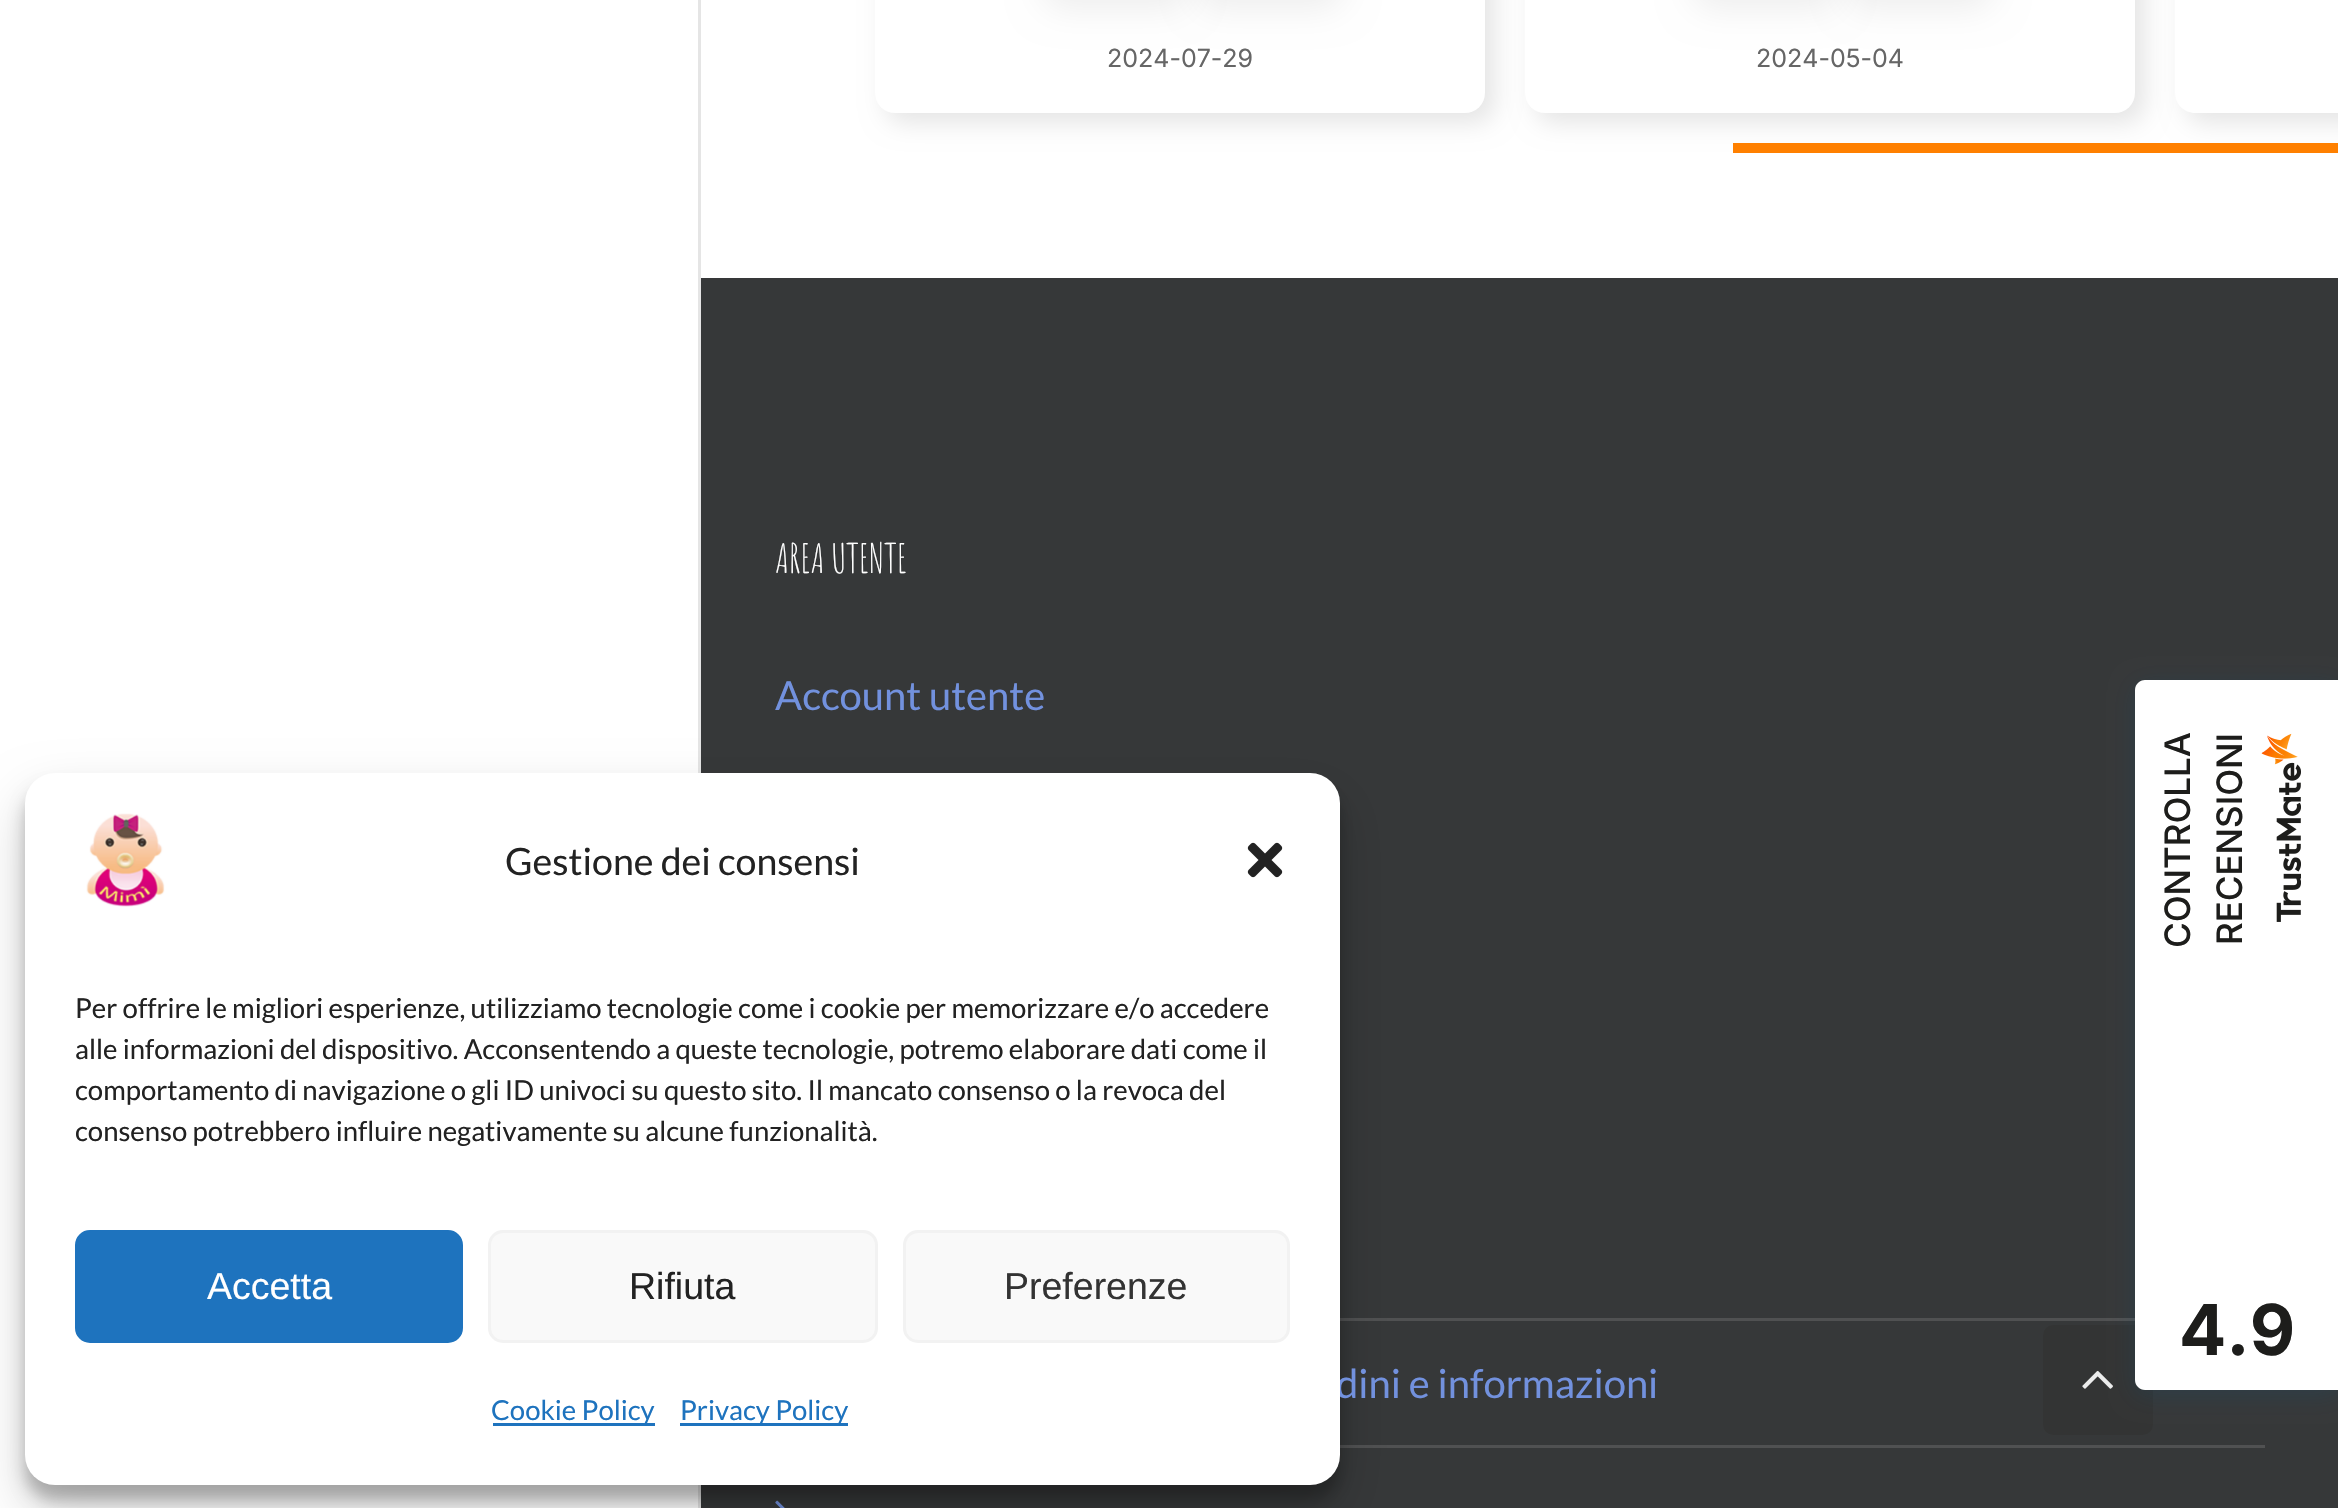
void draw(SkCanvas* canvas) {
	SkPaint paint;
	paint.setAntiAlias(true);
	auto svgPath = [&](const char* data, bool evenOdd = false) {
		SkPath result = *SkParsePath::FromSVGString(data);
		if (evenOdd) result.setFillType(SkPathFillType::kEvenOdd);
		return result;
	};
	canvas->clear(0xffffffff);
	paint.setColor(0xffe5e5e5);
	canvas->drawRect(SkRect::MakeXYWH(698, 0, 3, 1508), paint);
	paint.setColor(0xff363839);
	canvas->drawRect(SkRect::MakeXYWH(701, 278, 1637, 1230), paint);
	paint.setColor(0xff505152);
	canvas->drawRect(SkRect::MakeXYWH(1340, 1318, 795, 3), paint);
	canvas->drawRect(SkRect::MakeXYWH(1340, 1445, 925, 3), paint);
	canvas->drawImageRect(SkImages::DeferredFromEncodedData(SkData::MakeFromFileName("img3.png")), SkRect::MakeXYWH(775, 1500, 10, 8), SkSamplingOptions());
	paint.setColor(0x3b000000);
	paint.setMaskFilter(SkMaskFilter::MakeBlur(kNormal_SkBlurStyle, 7.5));
	canvas->drawRoundRect(SkRect::MakeXYWH(25, 788, 1315, 712), 30, 30, paint);
	paint.setMaskFilter(nullptr);
	paint.setColor(0x30000000);
	paint.setMaskFilter(SkMaskFilter::MakeBlur(kNormal_SkBlurStyle, 25));
	canvas->drawRoundRect(SkRect::MakeXYWH(25, 798, 1315, 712), 30, 30, paint);
	paint.setMaskFilter(nullptr);
	SkFont f1(fontMgr->matchFamilyStyle("Lato", SkFontStyle::Normal()), 40);
	f1.setSubpixel(true);
	paint.setColor(0xff7291de);
	canvas->drawString("dini e informazioni", 1336, 1398, f1, paint);
	paint.setColor(0xffffffff);
	canvas->drawRoundRect(SkRect::MakeXYWH(25, 773, 1315, 712), 30, 30, paint);
	canvas->drawImageRect(SkImages::DeferredFromEncodedData(SkData::MakeFromFileName("img1.png")), SkRect::MakeXYWH(86, 813, 79, 94), SkSamplingOptions());
	SkFont f2(fontMgr->matchFamilyStyle("Lato", SkFontStyle::Normal()), 37.5);
	f2.setSubpixel(true);
	paint.setColor(0xff222222);
	canvas->drawString("Gestione dei consensi", 505, 875, f2, paint);
	canvas->drawImageRect(SkImages::DeferredFromEncodedData(SkData::MakeFromFileName("img2.png")), SkRect::MakeXYWH(1247, 842, 36, 36), SkSamplingOptions());
	SkFont f3(fontMgr->matchFamilyStyle("Lato", SkFontStyle::Normal()), 27.5);
	f3.setSubpixel(true);
	canvas->drawString("Per offrire le migliori esperienze, utilizziamo tecnologie come i cookie per memorizzare e/o accedere", 75, 1018, f3, paint);
	canvas->drawString("alle informazioni del dispositivo. Acconsentendo a queste tecnologie, potremo elaborare dati come il", 75, 1059, f3, paint);
	canvas->drawString("comportamento di navigazione o gli ID univoci su questo sito. Il mancato consenso o la revoca del", 75, 1100, f3, paint);
	canvas->drawString("consenso potrebbero influire negativamente su alcune funzionalità.", 75, 1141, f3, paint);
	paint.setColor(0xff1e73be);
	canvas->drawRoundRect(SkRect::MakeXYWH(76.5, 1231.5, 385, 110), 13.5, 13.5, paint);
	paint.setStroke(true);
	paint.setStrokeWidth(3);
	canvas->drawRoundRect(SkRect::MakeXYWH(76.5, 1231.5, 385, 110), 13.5, 13.5, paint);
	SkFont f4(fontMgr->matchFamilyStyle("Liberation Sans", SkFontStyle::Normal()), 37.5);
	f4.setSubpixel(true);
	paint.setStroke(false);
	paint.setColor(0xffffffff);
	canvas->drawString("Accetta", 207, 1299, f4, paint);
	paint.setColor(0xfff9f9f9);
	canvas->drawRoundRect(SkRect::MakeXYWH(489.5, 1231.5, 387, 110), 13.5, 13.5, paint);
	paint.setStroke(true);
	paint.setColor(0xfff2f2f2);
	canvas->drawRoundRect(SkRect::MakeXYWH(489.5, 1231.5, 387, 110), 13.5, 13.5, paint);
	paint.setStroke(false);
	paint.setColor(0xff222222);
	canvas->drawString("Rifiuta", 629, 1299, f4, paint);
	paint.setColor(0xfff9f9f9);
	canvas->drawRoundRect(SkRect::MakeXYWH(904.5, 1231.5, 384, 110), 13.5, 13.5, paint);
	paint.setStroke(true);
	paint.setColor(0xfff2f2f2);
	canvas->drawRoundRect(SkRect::MakeXYWH(904.5, 1231.5, 384, 110), 13.5, 13.5, paint);
	paint.setStroke(false);
	paint.setColor(0xff333333);
	canvas->drawString("Preferenze", 1004, 1299, f4, paint);
	paint.setColor(0xff1e73be);
	canvas->drawRect(SkRect::MakeXYWH(493, 1423, 162, 3), paint);
	canvas->drawString("Cookie Policy", 491, 1420, f3, paint);
	canvas->drawRect(SkRect::MakeXYWH(680, 1423, 168, 3), paint);
	canvas->drawString("Privacy Policy", 680, 1420, f3, paint);
	paint.setColor(0x1a000000);
	paint.setMaskFilter(SkMaskFilter::MakeBlur(kNormal_SkBlurStyle, 12.5));
	canvas->drawRoundRect(SkRect::MakeXYWH(885, -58, 610, 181), 20, 20, paint);
	paint.setMaskFilter(nullptr);
	paint.setColor(0xffffffff);
	canvas->drawRoundRect(SkRect::MakeXYWH(875, -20, 610, 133), 20, 20, paint);
	paint.setColor(0x12000000);
	paint.setMaskFilter(SkMaskFilter::MakeBlur(kNormal_SkBlurStyle, 17.5));
	canvas->drawRoundRect(SkRect::MakeXYWH(1043, -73, 145, 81), 20, 20, paint);
	paint.setMaskFilter(nullptr);
	paint.setMaskFilter(SkMaskFilter::MakeBlur(kNormal_SkBlurStyle, 17.5));
	canvas->drawRoundRect(SkRect::MakeXYWH(1198, -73, 145, 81), 20, 20, paint);
	paint.setMaskFilter(nullptr);
	SkFont f5(fontMgr->matchFamilyStyle("Inter", SkFontStyle::Normal()), 25);
	f5.setSubpixel(true);
	paint.setColor(0xff666666);
	canvas->drawString("2024-07-29", 1107, 67, f5, paint);
	paint.setColor(0x1a000000);
	paint.setMaskFilter(SkMaskFilter::MakeBlur(kNormal_SkBlurStyle, 12.5));
	canvas->drawRoundRect(SkRect::MakeXYWH(1535, -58, 610, 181), 20, 20, paint);
	paint.setMaskFilter(nullptr);
	paint.setColor(0xffffffff);
	canvas->drawRoundRect(SkRect::MakeXYWH(1525, -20, 610, 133), 20, 20, paint);
	paint.setColor(0x12000000);
	paint.setMaskFilter(SkMaskFilter::MakeBlur(kNormal_SkBlurStyle, 17.5));
	canvas->drawRoundRect(SkRect::MakeXYWH(1693, -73, 145, 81), 20, 20, paint);
	paint.setMaskFilter(nullptr);
	paint.setMaskFilter(SkMaskFilter::MakeBlur(kNormal_SkBlurStyle, 17.5));
	canvas->drawRoundRect(SkRect::MakeXYWH(1848, -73, 145, 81), 20, 20, paint);
	paint.setMaskFilter(nullptr);
	paint.setColor(0xff666666);
	canvas->drawString("2024-05-04", 1756, 67, f5, paint);
	paint.setColor(0x1a000000);
	paint.setMaskFilter(SkMaskFilter::MakeBlur(kNormal_SkBlurStyle, 12.5));
	canvas->drawRoundRect(SkRect::MakeXYWH(2185, -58, 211, 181), 20, 20, paint);
	paint.setMaskFilter(nullptr);
	paint.setColor(0xffffffff);
	canvas->drawPath(svgPath("M2195-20H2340V113H2195C2184 113 2175 104 2175 93V0C2175-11 2184-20 2195-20Z"), paint);
	paint.setColor(0xffff8000);
	canvas->drawRect(SkRect::MakeXYWH(1733, 143, 605, 10), paint);
	SkFont f6(fontMgr->matchFamilyStyle("Amatic SC", SkFontStyle::Normal()), 40);
	f6.setSubpixel(true);
	paint.setColor(0xffffffff);
	canvas->drawString("AREA UTENTE", 775, 573, f6, paint);
	paint.setColor(0xff7291de);
	canvas->drawString("Account utente", 775, 710, f1, paint);
	paint.setColor(0xff333434);
	canvas->drawRoundRect(SkRect::MakeXYWH(2043, 1325, 110, 110), 10, 10, paint);
	canvas->drawImageRect(SkImages::DeferredFromEncodedData(SkData::MakeFromFileName("img4.png")), SkRect::MakeXYWH(2082, 1370, 31, 19), SkSamplingOptions());
	paint.setColor(0x330b5680);
	paint.setMaskFilter(SkMaskFilter::MakeBlur(kNormal_SkBlurStyle, 12.5));
	canvas->drawRoundRect(SkRect::MakeXYWH(2135, 685, 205, 710), 10, 10, paint);
	paint.setMaskFilter(nullptr);
	paint.setColor(0xffffffff);
	canvas->drawPath(svgPath("M2145 680H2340V1390H2145C2139.5 1390 2135 1385.5 2135 1380V690C2135 684.5 2139.5 680 2145 680Z"), paint);
	SkFont f7(fontMgr->matchFamilyStyle("Inter", SkFontStyle(500, SkFontStyle::kNormal_Width, SkFontStyle::kUpright_Slant)), 35);
	f7.setSubpixel(true);
	paint.setColor(0xff1d1d1b);
	canvas->save();
	canvas->rotate(-90, 2190, 948);
	canvas->drawString("CONTROLLA", 2190, 948, f7, paint);
	canvas->restore();
	canvas->save();
	canvas->rotate(-90, 2242, 945);
	canvas->drawString("RECENSIONI", 2242, 945, f7, paint);
	canvas->restore();
	canvas->drawImageRect(SkImages::DeferredFromEncodedData(SkData::MakeFromFileName("img5.png")), SkRect::MakeXYWH(2261, 733, 40, 189), SkSamplingOptions());
	SkFont f8(fontMgr->matchFamilyStyle("Inter", SkFontStyle::Bold()), 70);
	f8.setSubpixel(true);
	canvas->drawString("4.9", 2179, 1355, f8, paint);
}
